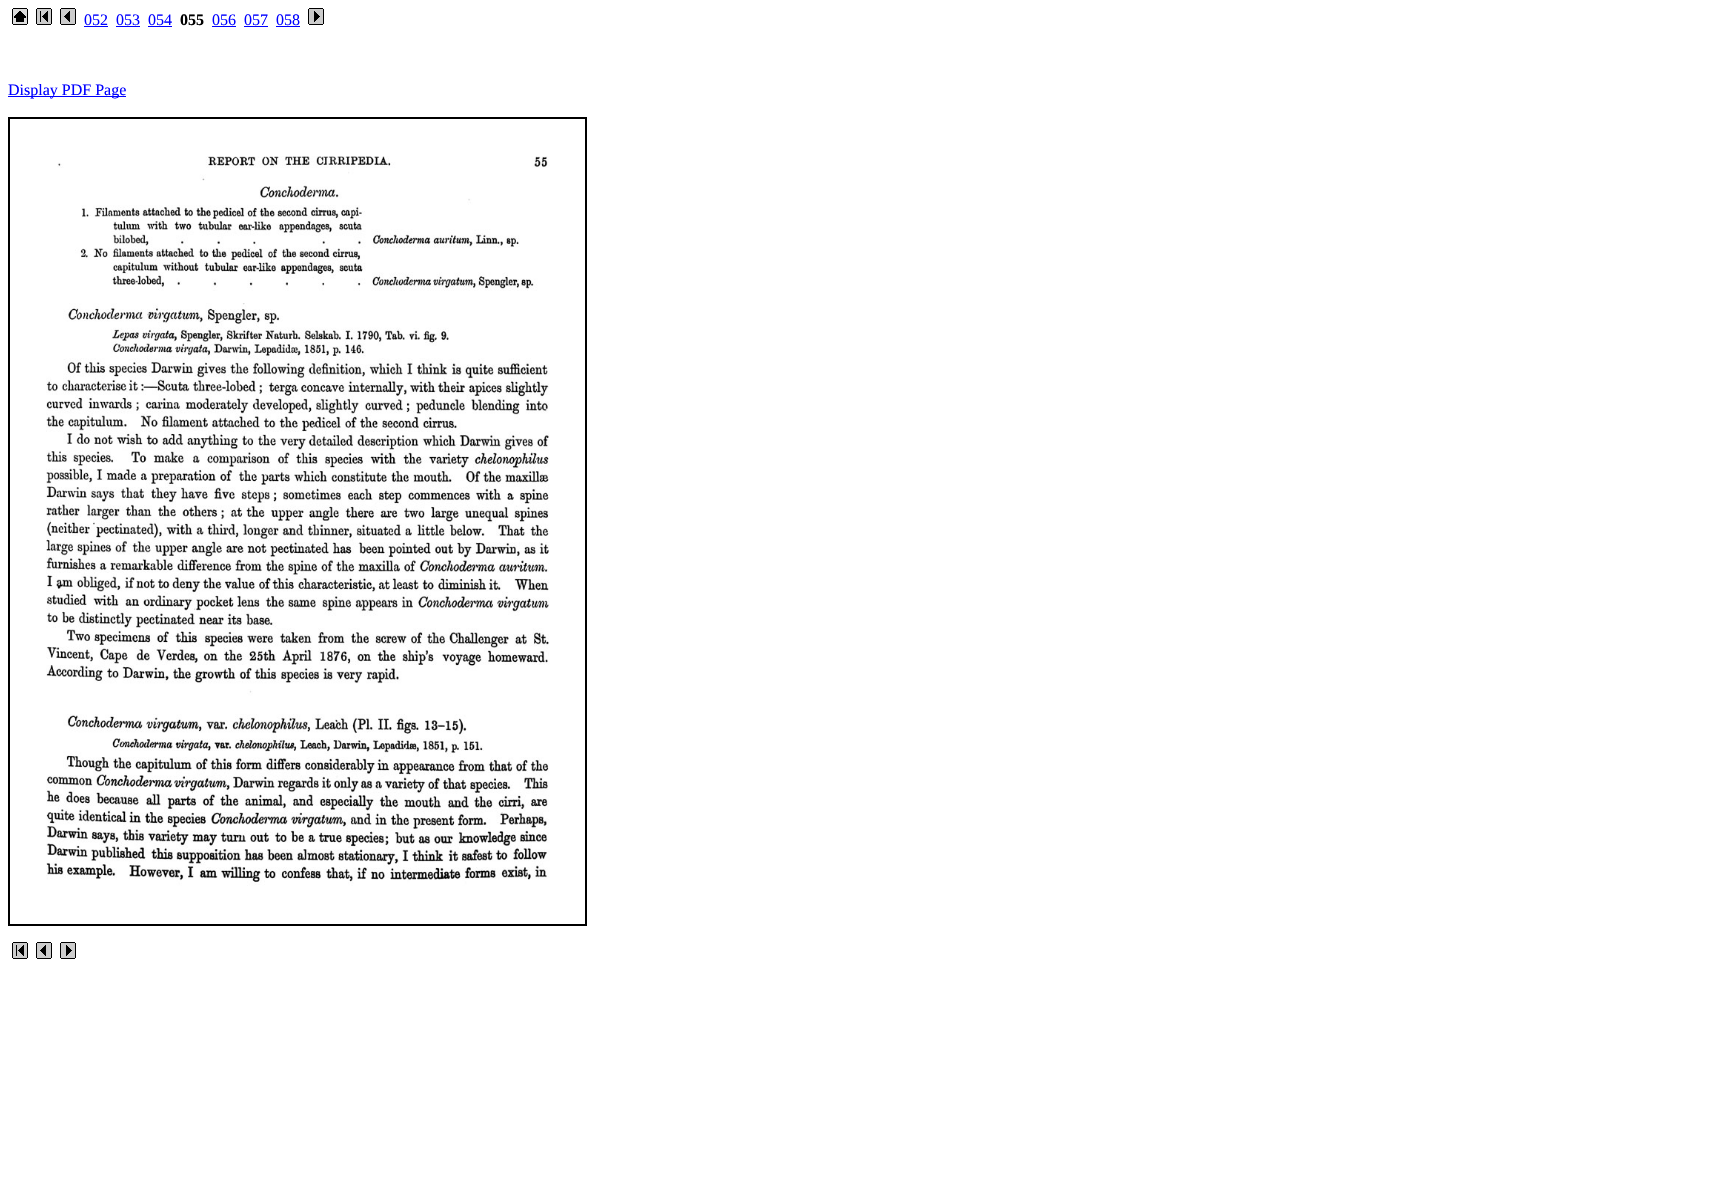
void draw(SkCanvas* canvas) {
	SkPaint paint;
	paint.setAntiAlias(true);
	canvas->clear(0xffffffff);
	canvas->drawImageRect(SkImages::DeferredFromEncodedData(SkData::MakeFromFileName("img1.png")), SkRect::MakeXYWH(12, 8, 16, 17), SkSamplingOptions());
	canvas->drawImageRect(SkImages::DeferredFromEncodedData(SkData::MakeFromFileName("img2.png")), SkRect::MakeXYWH(36, 8, 16, 17), SkSamplingOptions());
	canvas->drawImageRect(SkImages::DeferredFromEncodedData(SkData::MakeFromFileName("img3.png")), SkRect::MakeXYWH(60, 8, 16, 17), SkSamplingOptions());
	SkFont f1(fontMgr->matchFamilyStyle("Liberation Serif", SkFontStyle::Normal()), 16);
	f1.setSubpixel(true);
	paint.setColor(0xff0000ff);
	canvas->drawString("052", 84, 25, f1, paint);
	canvas->drawRect(SkRect::MakeXYWH(84, 26, 24, 1), paint);
	canvas->drawString("053", 116, 25, f1, paint);
	canvas->drawRect(SkRect::MakeXYWH(116, 26, 24, 1), paint);
	canvas->drawString("054", 148, 25, f1, paint);
	canvas->drawRect(SkRect::MakeXYWH(148, 26, 24, 1), paint);
	SkFont f2(fontMgr->matchFamilyStyle("Liberation Serif", SkFontStyle::Bold()), 16);
	f2.setSubpixel(true);
	paint.setColor(0xff000000);
	canvas->drawString("055", 180, 25, f2, paint);
	paint.setColor(0xff0000ff);
	canvas->drawString("056", 212, 25, f1, paint);
	canvas->drawRect(SkRect::MakeXYWH(212, 26, 24, 1), paint);
	canvas->drawString("057", 244, 25, f1, paint);
	canvas->drawRect(SkRect::MakeXYWH(244, 26, 24, 1), paint);
	canvas->drawString("058", 276, 25, f1, paint);
	canvas->drawRect(SkRect::MakeXYWH(276, 26, 24, 1), paint);
	canvas->drawImageRect(SkImages::DeferredFromEncodedData(SkData::MakeFromFileName("img4.png")), SkRect::MakeXYWH(308, 8, 16, 17), SkSamplingOptions());
	canvas->drawRect(SkRect::MakeXYWH(8, 96, 118, 1), paint);
	canvas->drawString("Display PDF Page", 8, 95, f1, paint);
	paint.setStroke(true);
	paint.setStrokeWidth(2);
	paint.setColor(0xff000000);
	canvas->drawRect(SkRect::MakeXYWH(9, 118, 577, 807), paint);
	canvas->drawImageRect(SkImages::DeferredFromEncodedData(SkData::MakeFromFileName("img5.png")), SkRect::MakeXYWH(46, 156, 504, 730), SkSamplingOptions());
	canvas->drawImageRect(SkImages::DeferredFromEncodedData(SkData::MakeFromFileName("img2.png")), SkRect::MakeXYWH(12, 942, 16, 17), SkSamplingOptions());
	canvas->drawImageRect(SkImages::DeferredFromEncodedData(SkData::MakeFromFileName("img3.png")), SkRect::MakeXYWH(36, 942, 16, 17), SkSamplingOptions());
	canvas->drawImageRect(SkImages::DeferredFromEncodedData(SkData::MakeFromFileName("img4.png")), SkRect::MakeXYWH(60, 942, 16, 17), SkSamplingOptions());
}
